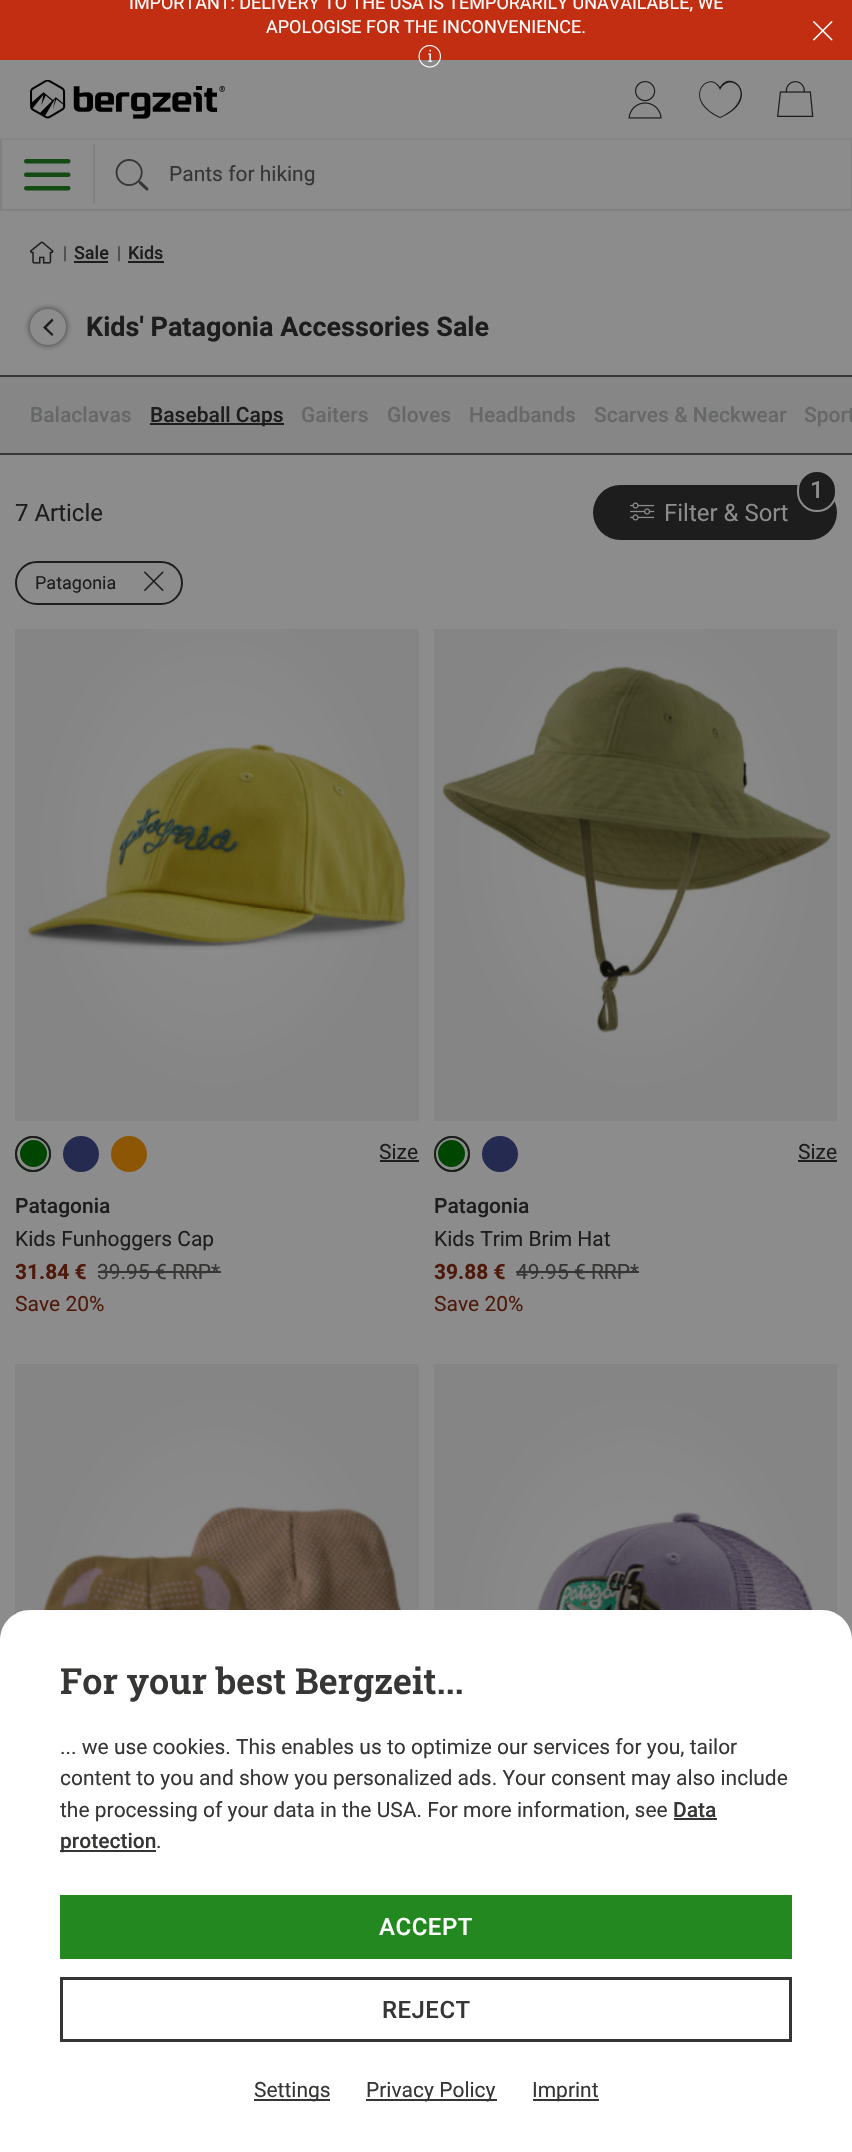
void draw(SkCanvas* canvas) {
	SkPaint paint;
	paint.setAntiAlias(true);
	auto spacedText = [&](const char* s, float x, float y, const SkFont& font, const SkPaint& ink, float letter, float word) {
		std::vector<SkGlyphID> glyphs(font.countText(s, strlen(s), SkTextEncoding::kUTF8));
		std::vector<float> xs(glyphs.size());
		font.textToGlyphs(s, strlen(s), SkTextEncoding::kUTF8, glyphs);
		font.getXPos(glyphs, xs, x);
		float extra = 0;
		for (size_t i = 0; i < glyphs.size(); i++) {
			xs[i] += extra;
			extra += letter + word * (glyphs[i] == font.unicharToGlyph(' '));
		}
		canvas->drawTextBlob(SkTextBlob::MakeFromPosHGlyphs(glyphs, xs, y, font), 0, 0, ink);
	};
	auto svgPath = [&](const char* data, bool evenOdd = false) {
		SkPath result = *SkParsePath::FromSVGString(data);
		if (evenOdd) result.setFillType(SkPathFillType::kEvenOdd);
		return result;
	};
	canvas->clear(0xff8c8c8c);
	paint.setColor(0xffc22e12);
	canvas->drawRect(SkRect::MakeXYWH(0, 0, 852, 60), paint);
	SkFont f1(fontMgr->matchFamilyStyle("Roboto", SkFontStyle::Normal()), 18);
	f1.setSubpixel(true);
	paint.setColor(0xffffffff);
	canvas->drawString("IMPORTANT: DELIVERY TO THE USA IS TEMPORARILY UNAVAILABLE, WE", 129, 9, f1, paint);
	canvas->drawString("APOLOGISE FOR THE INCONVENIENCE.", 266, 33, f1, paint);
	canvas->drawImageRect(SkImages::DeferredFromEncodedData(SkData::MakeFromFileName("img1.png")), SkRect::MakeXYWH(418, 45, 23, 23), SkSamplingOptions());
	canvas->drawImageRect(SkImages::DeferredFromEncodedData(SkData::MakeFromFileName("img2.png")), SkRect::MakeXYWH(813, 21, 20, 20), SkSamplingOptions());
	paint.setColor(0xff868686);
	canvas->drawRect(SkRect::MakeXYWH(0, 138, 852, 2), paint);
	canvas->drawImageRect(SkImages::DeferredFromEncodedData(SkData::MakeFromFileName("img3.png")), SkRect::MakeXYWH(30, 80, 195, 39), SkSamplingOptions());
	canvas->drawImageRect(SkImages::DeferredFromEncodedData(SkData::MakeFromFileName("img4.png")), SkRect::MakeXYWH(628, 81, 34, 38), SkSamplingOptions());
	paint.setColor(0xff1d1d1d);
	canvas->drawPath(svgPath("M742 94C742 82 727 75 720 87C710 71 688 91 706 109C710 113 715 116 720 118C730 114 742 106 742 94ZM740 98C737 107 729 113 720 117C680 98 711 68 720 90C728 75 744 85 740 98Z"), paint);
	canvas->drawImageRect(SkImages::DeferredFromEncodedData(SkData::MakeFromFileName("img5.png")), SkRect::MakeXYWH(777, 81, 37, 36), SkSamplingOptions());
	paint.setColor(0xff818181);
	canvas->drawRect(SkRect::MakeXYWH(851, 140, 1, 70), paint);
	canvas->drawRect(SkRect::MakeXYWH(0, 209, 852, 2), paint);
	canvas->drawRect(SkRect::MakeXYWH(0, 140, 2, 70), paint);
	canvas->drawRect(SkRect::MakeXYWH(93, 144, 2, 60), paint);
	canvas->drawImageRect(SkImages::DeferredFromEncodedData(SkData::MakeFromFileName("img6.png")), SkRect::MakeXYWH(24, 159, 47, 32), SkSamplingOptions());
	canvas->drawImageRect(SkImages::DeferredFromEncodedData(SkData::MakeFromFileName("img7.png")), SkRect::MakeXYWH(115, 159, 34, 32), SkSamplingOptions());
	SkFont f2(fontMgr->matchFamilyStyle("Roboto", SkFontStyle::Normal()), 21);
	f2.setSubpixel(true);
	paint.setColor(0xff363635);
	canvas->drawString("Pants for hiking", 169, 181, f2, paint);
	canvas->drawImageRect(SkImages::DeferredFromEncodedData(SkData::MakeFromFileName("img8.png")), SkRect::MakeXYWH(30, 241, 24, 23), SkSamplingOptions());
	SkFont f3(fontMgr->matchFamilyStyle("Roboto", SkFontStyle(300, SkFontStyle::kNormal_Width, SkFontStyle::kUpright_Slant)), 18);
	f3.setSubpixel(true);
	paint.setColor(0xff1d1d1d);
	canvas->drawString("|", 63, 259, f3, paint);
	SkFont f4(fontMgr->matchFamilyStyle("Roboto", SkFontStyle(500, SkFontStyle::kNormal_Width, SkFontStyle::kUpright_Slant)), 18);
	f4.setSubpixel(true);
	canvas->drawString("Sale", 74, 259, f4, paint);
	canvas->drawRect(SkRect::MakeXYWH(74, 261, 34, 2), paint);
	canvas->drawString("|", 117, 259, f3, paint);
	canvas->drawString("Kids", 128, 259, f4, paint);
	canvas->drawRect(SkRect::MakeXYWH(128, 261, 36, 2), paint);
	paint.setColor(0xff363635);
	paint.setMaskFilter(SkMaskFilter::MakeBlur(kNormal_SkBlurStyle, 3));
	canvas->drawRoundRect(SkRect::MakeXYWH(30, 309, 36, 36), 18, 18, paint);
	paint.setMaskFilter(nullptr);
	paint.setColor(0xff8c8c8c);
	canvas->drawCircle(48, 327, 18, paint);
	paint.setColor(0xff1d1d1d);
	canvas->drawPath(svgPath("M53.5 320.5L52 318.5L43 327.5L52 336L53.5 334.5L46.5 327.5Z"), paint);
	SkFont f5(fontMgr->matchFamilyStyle("Roboto", SkFontStyle::Bold()), 27);
	f5.setSubpixel(true);
	canvas->drawString("Kids' Patagonia Accessories Sale", 86, 336, f5, paint);
	paint.setColor(0xff868686);
	canvas->drawRect(SkRect::MakeXYWH(0, 377, 852, 76), paint);
	paint.setColor(0xff363635);
	canvas->drawRect(SkRect::MakeXYWH(0, 375, 852, 2), paint);
	canvas->drawRect(SkRect::MakeXYWH(0, 453, 852, 2), paint);
	SkFont f6(fontMgr->matchFamilyStyle("Roboto", SkFontStyle(500, SkFontStyle::kNormal_Width, SkFontStyle::kUpright_Slant)), 21);
	f6.setSubpixel(true);
	paint.setColor(0xff666767);
	canvas->drawString("Balaclavas", 30, 422, f6, paint);
	paint.setColor(0xff1d1d1d);
	canvas->drawRect(SkRect::MakeXYWH(150, 423, 134, 2), paint);
	canvas->drawString("Baseball Caps", 150, 422, f6, paint);
	paint.setColor(0xff666767);
	canvas->drawString("Gaiters", 301, 422, f6, paint);
	canvas->drawString("Gloves", 387, 422, f6, paint);
	canvas->drawString("Headbands", 469, 422, f6, paint);
	canvas->drawString("Scarves & Neckwear", 594, 422, f6, paint);
	canvas->drawString("Sport", 804, 422, f6, paint);
	SkFont f7(fontMgr->matchFamilyStyle("Roboto", SkFontStyle::Normal()), 24);
	f7.setSubpixel(true);
	paint.setColor(0xff1d1d1d);
	canvas->drawString("7 Article", 15, 521, f7, paint);
	canvas->drawRoundRect(SkRect::MakeXYWH(593, 485, 244, 55), 27.5, 27.5, paint);
	canvas->drawRoundRect(SkRect::MakeXYWH(798, 471, 38, 40), 19, 19, paint);
	paint.setStroke(true);
	paint.setStrokeWidth(2);
	paint.setColor(0xff8c8c8c);
	canvas->drawRoundRect(SkRect::MakeXYWH(798, 471, 38, 40), 19, 19, paint);
	SkFont f8(fontMgr->matchFamilyStyle("Roboto", SkFontStyle(500, SkFontStyle::kNormal_Width, SkFontStyle::kUpright_Slant)), 24);
	f8.setSubpixel(true);
	paint.setStroke(false);
	canvas->drawString("1", 810, 498, f8, paint);
	canvas->drawImageRect(SkImages::DeferredFromEncodedData(SkData::MakeFromFileName("img9.png")), SkRect::MakeXYWH(630, 502, 25, 19), SkSamplingOptions());
	canvas->drawString("Filter & Sort", 664, 521, f7, paint);
	paint.setStroke(true);
	paint.setColor(0xff1d1d1d);
	canvas->drawRoundRect(SkRect::MakeXYWH(16, 562, 166, 42), 21, 21, paint);
	paint.setStroke(false);
	canvas->drawString("Patagonia", 35, 589, f1, paint);
	canvas->drawImageRect(SkImages::DeferredFromEncodedData(SkData::MakeFromFileName("img10.png")), SkRect::MakeXYWH(144, 571, 20, 20), SkSamplingOptions());
	canvas->drawImageRect(SkImages::DeferredFromEncodedData(SkData::MakeFromFileName("img11.png")), SkRect::MakeXYWH(23, 743, 387, 207), SkSamplingOptions());
	{
		const SkColor colors[] = {0x00000000, 0x0d000000};
		const float stops[] = {0.27, 0.95};
		SkMatrix m = SkMatrix::Translate(217, 848).preScale(202, 272);
		paint.setShader(SkGradientShader::MakeRadial({0, 0}, 1, colors, stops, 2, SkTileMode::kClamp, 0, &m));
		paint.setAlpha(255);
	}
	canvas->drawRect(SkRect::MakeXYWH(15, 629, 404, 492), paint);
	paint.setShader(nullptr);
	paint.setColor(0xff004600);
	canvas->drawCircle(33, 1154, 18, paint);
	paint.setStroke(true);
	paint.setStrokeWidth(3);
	paint.setColor(0xff8c8c8c);
	canvas->drawCircle(33.5, 1153.5, 15, paint);
	paint.setStrokeWidth(2);
	paint.setColor(0xff1d1d1d);
	canvas->drawCircle(33, 1154, 17, paint);
	paint.setStroke(false);
	paint.setColor(0xff252a50);
	canvas->drawCircle(81, 1154, 17, paint);
	paint.setStroke(true);
	canvas->drawCircle(81, 1154, 17, paint);
	paint.setStroke(false);
	paint.setColor(0xff8c5605);
	canvas->drawCircle(129, 1154, 17, paint);
	paint.setStroke(true);
	canvas->drawCircle(129, 1154, 17, paint);
	paint.setStroke(false);
	paint.setColor(0xff1d1d1d);
	canvas->drawString("Size", 379, 1159, f2, paint);
	canvas->drawRect(SkRect::MakeXYWH(380, 1160, 39, 2), paint);
	canvas->drawString("Patagonia", 15, 1213, f6, paint);
	canvas->drawString("Kids Funhoggers Cap", 15, 1246, f2, paint);
	SkFont f9(fontMgr->matchFamilyStyle("Roboto", SkFontStyle::Bold()), 21);
	f9.setSubpixel(true);
	paint.setColor(0xff4e190a);
	canvas->drawString("31.84 €", 15, 1279, f9, paint);
	paint.setColor(0xff363635);
	canvas->drawString("39.95 € RRP*", 97, 1279, f2, paint);
	canvas->drawRect(SkRect::MakeXYWH(98, 1271, 123, 2), paint);
	paint.setColor(0xff4e190a);
	canvas->drawString("Save 20%", 15, 1311, f2, paint);
	canvas->drawImageRect(SkImages::DeferredFromEncodedData(SkData::MakeFromFileName("img12.png")), SkRect::MakeXYWH(441, 666, 390, 367), SkSamplingOptions());
	{
		const SkColor colors[] = {0x00000000, 0x0d000000};
		const float stops[] = {0.27, 0.95};
		SkMatrix m = SkMatrix::Translate(635, 848).preScale(202, 272);
		paint.setShader(SkGradientShader::MakeRadial({0, 0}, 1, colors, stops, 2, SkTileMode::kClamp, 0, &m));
		paint.setAlpha(255);
	}
	canvas->drawRect(SkRect::MakeXYWH(434, 629, 403, 492), paint);
	paint.setShader(nullptr);
	paint.setColor(0xff004600);
	canvas->drawCircle(452, 1154, 18, paint);
	paint.setStroke(true);
	paint.setStrokeWidth(3);
	paint.setColor(0xff8c8c8c);
	canvas->drawCircle(451.5, 1153.5, 15, paint);
	paint.setStrokeWidth(2);
	paint.setColor(0xff1d1d1d);
	canvas->drawCircle(452, 1154, 17, paint);
	paint.setStroke(false);
	paint.setColor(0xff252a50);
	canvas->drawCircle(500, 1154, 17, paint);
	paint.setStroke(true);
	canvas->drawCircle(500, 1154, 17, paint);
	paint.setStroke(false);
	paint.setColor(0xff1d1d1d);
	canvas->drawString("Size", 798, 1159, f2, paint);
	canvas->drawRect(SkRect::MakeXYWH(798, 1160, 39, 2), paint);
	canvas->drawString("Patagonia", 434, 1213, f6, paint);
	canvas->drawString("Kids Trim Brim Hat", 434, 1246, f2, paint);
	paint.setColor(0xff4e190a);
	canvas->drawString("39.88 €", 434, 1279, f9, paint);
	paint.setColor(0xff363635);
	canvas->drawString("49.95 € RRP*", 516, 1279, f2, paint);
	canvas->drawRect(SkRect::MakeXYWH(516, 1271, 123, 2), paint);
	paint.setColor(0xff4e190a);
	canvas->drawString("Save 20%", 434, 1311, f2, paint);
	canvas->drawImageRect(SkImages::DeferredFromEncodedData(SkData::MakeFromFileName("img13.png")), SkRect::MakeXYWH(22, 1501, 390, 111), SkSamplingOptions());
	{
		const SkColor colors[] = {0x00000000, 0x0d000000};
		const float stops[] = {0.27, 0.95};
		SkMatrix m = SkMatrix::Translate(217, 1636).preScale(202, 272);
		paint.setShader(SkGradientShader::MakeRadial({0, 0}, 1, colors, stops, 2, SkTileMode::kClamp, 0, &m));
		paint.setAlpha(255);
	}
	canvas->drawRect(SkRect::MakeXYWH(15, 1364, 404, 250), paint);
	canvas->drawImageRect(SkImages::DeferredFromEncodedData(SkData::MakeFromFileName("img14.png")), SkRect::MakeXYWH(444, 1510, 386, 102), SkSamplingOptions());
	{
		const SkColor colors[] = {0x00000000, 0x0d000000};
		const float stops[] = {0.27, 0.95};
		SkMatrix m = SkMatrix::Translate(635, 1636).preScale(202, 272);
		paint.setShader(SkGradientShader::MakeRadial({0, 0}, 1, colors, stops, 2, SkTileMode::kClamp, 0, &m));
		paint.setAlpha(255);
	}
	canvas->drawRect(SkRect::MakeXYWH(434, 1364, 403, 250), paint);
	paint.setShader(nullptr);
	paint.setColor(0xffffffff);
	canvas->drawPath(svgPath("M30 1610H822C838.5 1610 852 1623.5 852 1640V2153H0V1640C0 1623.5 13.5 1610 30 1610Z"), paint);
	SkFont f10(fontMgr->matchFamilyStyle("Roboto Slab", SkFontStyle(600, SkFontStyle::kNormal_Width, SkFontStyle::kUpright_Slant)), 36);
	f10.setSubpixel(true);
	paint.setColor(0xff363635);
	canvas->drawString("For your best Bergzeit...", 60, 1694, f10, paint);
	canvas->drawString("... we use cookies. This enables us to optimize our services for you, tailor", 60, 1754, f2, paint);
	canvas->drawString("content to you and show you personalized ads. Your consent may also include", 60, 1785, f2, paint);
	canvas->drawString("the processing of your data in the USA. For more information, see", 60, 1817, f2, paint);
	canvas->drawString("Data", 673, 1817, f6, paint);
	paint.setColor(0xff343535);
	canvas->drawRect(SkRect::MakeXYWH(674, 1818, 43, 2), paint);
	canvas->drawRect(SkRect::MakeXYWH(60, 1850, 96, 2), paint);
	paint.setColor(0xff363635);
	canvas->drawString("protection", 60, 1848, f6, paint);
	canvas->drawString(".", 156, 1848, f2, paint);
	paint.setColor(0xff248821);
	canvas->drawRect(SkRect::MakeXYWH(60, 1895, 732, 64), paint);
	paint.setColor(0xffffffff);
	spacedText("ACCEPT", 379, 1935, f8, paint, 0.5, 0);
	paint.setStroke(true);
	paint.setStrokeWidth(3);
	paint.setColor(0xff343535);
	canvas->drawRect(SkRect::MakeXYWH(61.5, 1978.5, 729, 62), paint);
	paint.setStroke(false);
	paint.setColor(0xff363635);
	spacedText("REJECT", 382, 2018, f8, paint, 0.5, 0);
	paint.setColor(0xff343535);
	canvas->drawRect(SkRect::MakeXYWH(254, 2099, 76, 2), paint);
	paint.setColor(0xff363635);
	canvas->drawString("Settings", 254, 2097, f2, paint);
	paint.setColor(0xff343535);
	canvas->drawRect(SkRect::MakeXYWH(366, 2099, 131, 2), paint);
	paint.setColor(0xff363635);
	canvas->drawString("Privacy Policy", 366, 2097, f2, paint);
	paint.setColor(0xff343535);
	canvas->drawRect(SkRect::MakeXYWH(533, 2099, 66, 2), paint);
	paint.setColor(0xff363635);
	canvas->drawString("Imprint", 532, 2097, f2, paint);
}
